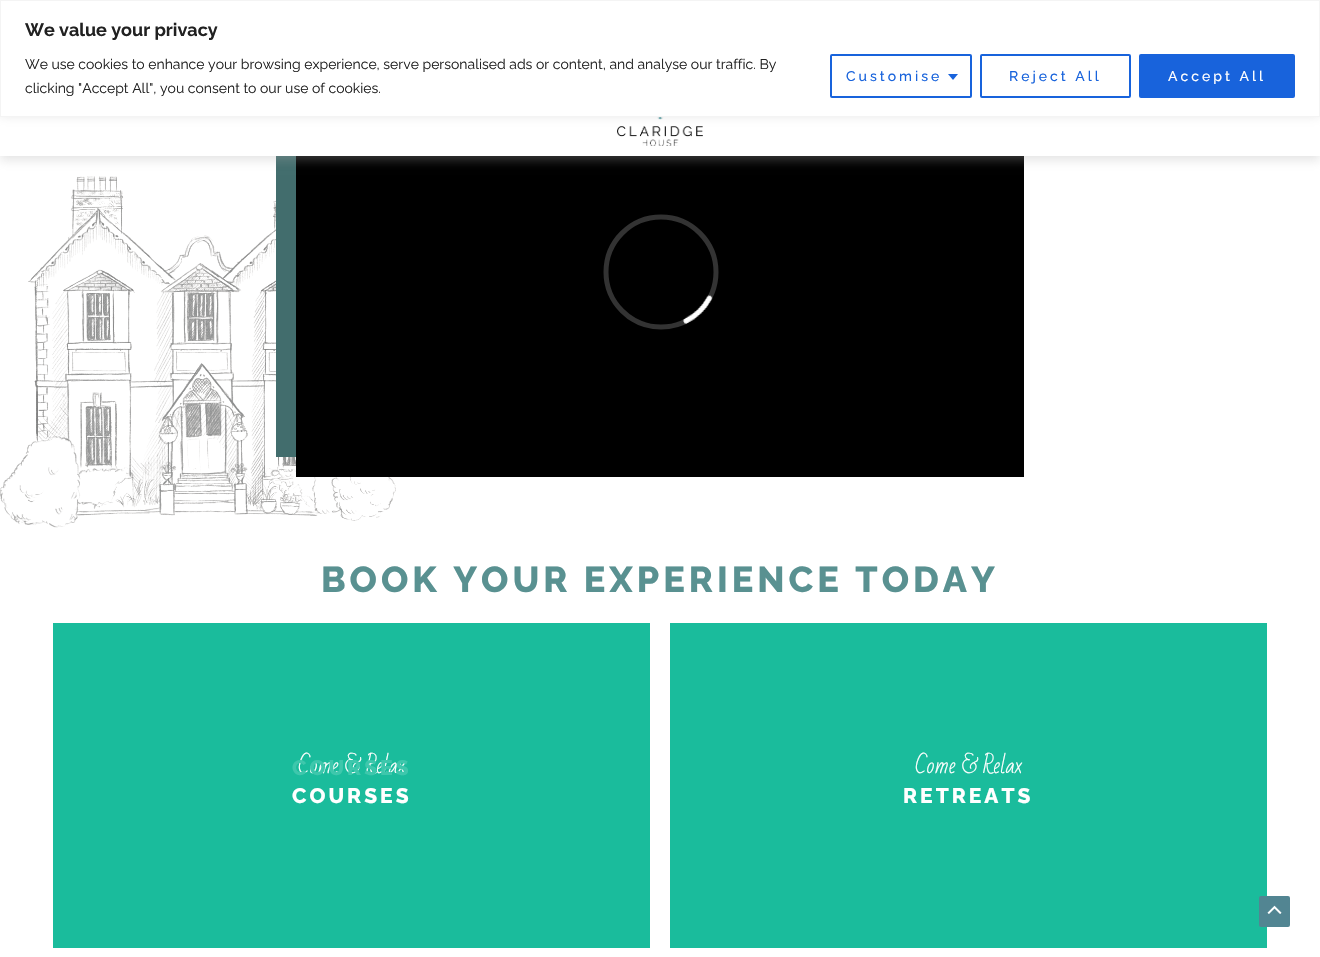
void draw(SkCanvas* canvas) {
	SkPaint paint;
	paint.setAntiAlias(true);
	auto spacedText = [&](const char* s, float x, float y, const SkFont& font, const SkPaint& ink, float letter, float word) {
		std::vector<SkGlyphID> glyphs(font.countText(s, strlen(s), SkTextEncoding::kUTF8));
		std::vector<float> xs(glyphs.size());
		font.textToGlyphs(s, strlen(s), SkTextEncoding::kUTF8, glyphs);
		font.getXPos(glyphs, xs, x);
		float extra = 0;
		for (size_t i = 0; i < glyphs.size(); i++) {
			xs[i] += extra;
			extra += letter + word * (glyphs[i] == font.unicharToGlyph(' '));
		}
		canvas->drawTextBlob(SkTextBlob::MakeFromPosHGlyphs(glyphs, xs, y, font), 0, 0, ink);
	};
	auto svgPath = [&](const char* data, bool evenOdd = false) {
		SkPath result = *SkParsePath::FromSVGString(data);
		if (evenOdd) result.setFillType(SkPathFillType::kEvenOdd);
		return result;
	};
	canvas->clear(0xffffffff);
	canvas->drawImageRect(SkImages::DeferredFromEncodedData(SkData::MakeFromFileName("img2.png")), SkRect::MakeXYWH(0, 176, 396, 352), SkSamplingOptions());
	paint.setColor(0xff426d6d);
	canvas->drawPath(svgPath("M276 47V457H296V67H1004V47Z"), paint);
	paint.setColor(0xff000000);
	canvas->drawRect(SkRect::MakeXYWH(296, 156, 728, 321), paint);
	paint.setColor(0x54a9a9a9);
	paint.setMaskFilter(SkMaskFilter::MakeBlur(kNormal_SkBlurStyle, 5));
	canvas->drawRect(SkRect::MakeXYWH(0, 4, 1320, 156), paint);
	paint.setMaskFilter(nullptr);
	paint.setColor(0xffffffff);
	canvas->drawRect(SkRect::MakeXYWH(0, 117, 1320, 39), paint);
	canvas->drawImageRect(SkImages::DeferredFromEncodedData(SkData::MakeFromFileName("img1.png")), SkRect::MakeXYWH(617, 117, 86, 29), SkSamplingOptions());
	paint.setColor(0x4dacabab);
	paint.setMaskFilter(SkMaskFilter::MakeBlur(kNormal_SkBlurStyle, 5));
	canvas->drawRect(SkRect::MakeXYWH(0, -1, 1320, 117), paint);
	paint.setMaskFilter(nullptr);
	paint.setColor(0xffffffff);
	canvas->drawRect(SkRect::MakeXYWH(0.5, 0.5, 1319, 116), paint);
	paint.setStroke(true);
	paint.setStrokeWidth(1);
	paint.setColor(0xfff4f4f4);
	canvas->drawRect(SkRect::MakeXYWH(0.5, 0.5, 1319, 116), paint);
	SkFont f1(fontMgr->matchFamilyStyle("Raleway", SkFontStyle::Bold()), 18);
	f1.setSubpixel(true);
	paint.setStroke(false);
	paint.setColor(0xff212121);
	canvas->drawString("We value your privacy", 25, 36, f1, paint);
	SkFont f2(fontMgr->matchFamilyStyle("Raleway", SkFontStyle::Normal()), 14);
	f2.setSubpixel(true);
	canvas->drawString("We use cookies to enhance your browsing experience, serve personalised ads or content, and analyse our traffic. By", 25, 69, f2, paint);
	canvas->drawString("clicking \"Accept All\", you consent to our use of cookies.", 25, 93, f2, paint);
	paint.setStroke(true);
	paint.setStrokeWidth(2);
	paint.setColor(0xff1863dc);
	canvas->drawRoundRect(SkRect::MakeXYWH(831, 55, 140, 42), 1, 1, paint);
	SkFont f3(fontMgr->matchFamilyStyle("Raleway", SkFontStyle(500, SkFontStyle::kNormal_Width, SkFontStyle::kUpright_Slant)), 14);
	f3.setSubpixel(true);
	paint.setStroke(false);
	spacedText("Customise", 846, 81, f3, paint, 3, 0);
	canvas->drawPath(svgPath("M948 74H958L953 80Z"), paint);
	paint.setStroke(true);
	canvas->drawRoundRect(SkRect::MakeXYWH(981, 55, 149, 42), 1, 1, paint);
	paint.setStroke(false);
	spacedText("Reject All", 1009, 81, f3, paint, 3, 0);
	canvas->drawRoundRect(SkRect::MakeXYWH(1140, 55, 154, 42), 1, 1, paint);
	paint.setStroke(true);
	canvas->drawRoundRect(SkRect::MakeXYWH(1140, 55, 154, 42), 1, 1, paint);
	paint.setStroke(false);
	paint.setColor(0xffffffff);
	spacedText("Accept All", 1168, 81, f3, paint, 3, 0);
	canvas->drawImageRect(SkImages::DeferredFromEncodedData(SkData::MakeFromFileName("img3.png")), SkRect::MakeXYWH(603, 214, 116, 116), SkSamplingOptions());
	SkFont f4(fontMgr->matchFamilyStyle("Raleway", SkFontStyle(800, SkFontStyle::kNormal_Width, SkFontStyle::kUpright_Slant)), 36);
	f4.setSubpixel(true);
	paint.setColor(0xff599191);
	spacedText("BOOK YOUR EXPERIENCE TODAY", 321, 592, f4, paint, 4, 0);
	paint.setColor(0xff1abc9c);
	canvas->drawRect(SkRect::MakeXYWH(53, 623, 597, 325), paint);
	SkFont f5(fontMgr->matchFamilyStyle("Bad Script", SkFontStyle::Normal()), 21);
	f5.setSubpixel(true);
	paint.setColor(0xffffffff);
	canvas->drawString("Come & Relax", 298, 773, f5, paint);
	SkFont f6(fontMgr->matchFamilyStyle("Raleway", SkFontStyle(800, SkFontStyle::kNormal_Width, SkFontStyle::kUpright_Slant)), 21);
	f6.setSubpixel(true);
	spacedText("COURSES", 292, 803, f6, paint, 3, 0);
	paint.setColor(0xff3ec7ac);
	spacedText("COURSES", 292, 775, f6, paint, 3, 0);
	paint.setColor(0xff1abc9c);
	canvas->drawRect(SkRect::MakeXYWH(670, 623, 597, 325), paint);
	paint.setColor(0xffffffff);
	canvas->drawString("Come & Relax", 915, 773, f5, paint);
	spacedText("RETREATS", 903, 803, f6, paint, 3, 0);
	paint.setColor(0xff528592);
	canvas->drawRoundRect(SkRect::MakeXYWH(1259, 896, 31, 31), 2, 2, paint);
	canvas->drawImageRect(SkImages::DeferredFromEncodedData(SkData::MakeFromFileName("img4.png")), SkRect::MakeXYWH(1267, 905, 15, 9), SkSamplingOptions());
}
